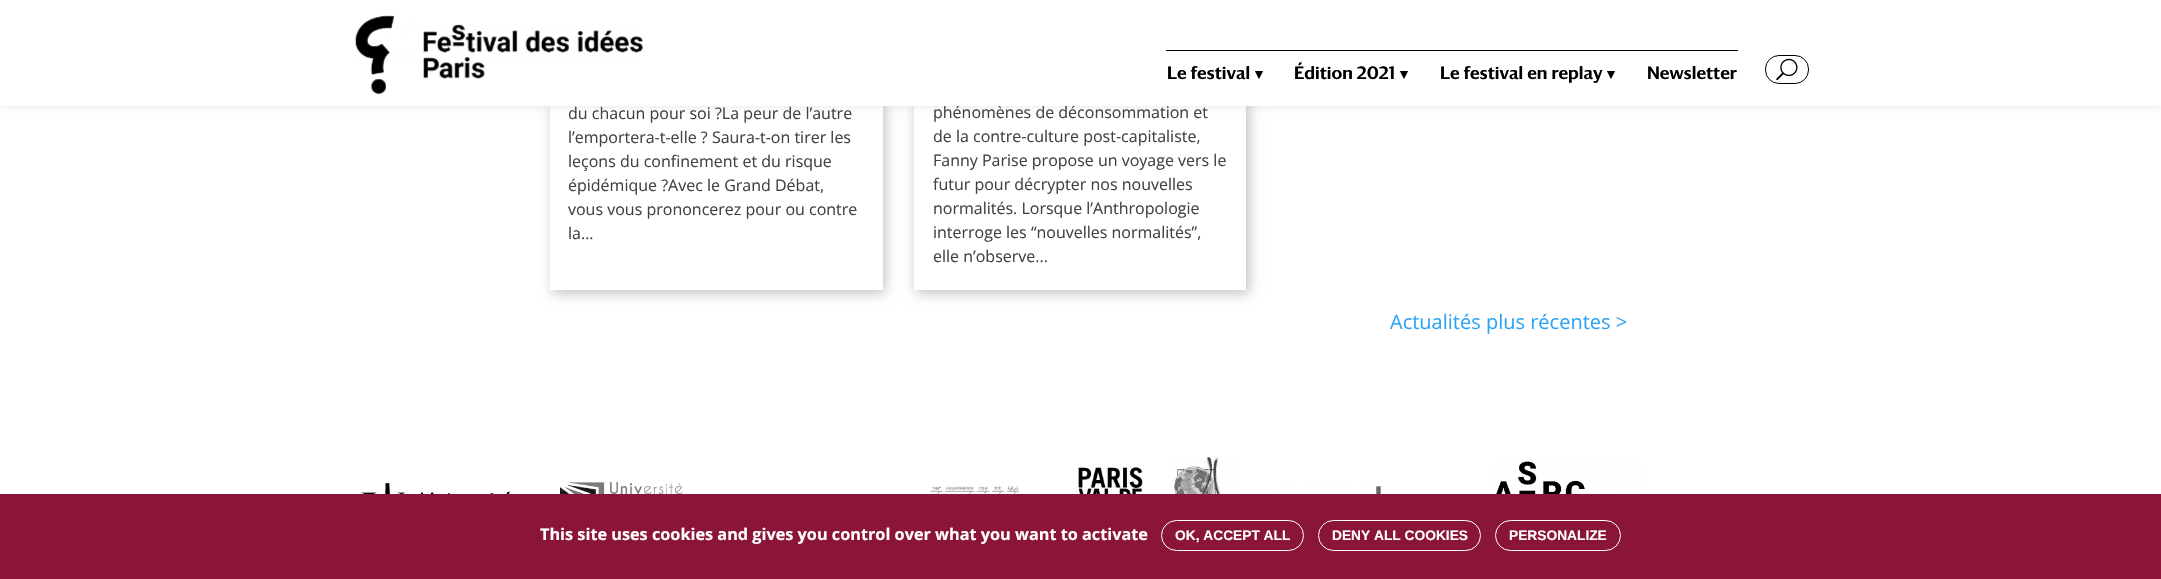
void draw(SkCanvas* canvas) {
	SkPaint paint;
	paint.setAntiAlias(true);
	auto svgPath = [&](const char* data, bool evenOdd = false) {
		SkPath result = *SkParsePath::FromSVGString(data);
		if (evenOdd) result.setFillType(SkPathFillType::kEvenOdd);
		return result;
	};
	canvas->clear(0xffffffff);
	paint.setColor(0x1a000000);
	paint.setMaskFilter(SkMaskFilter::MakeBlur(kNormal_SkBlurStyle, 4.5));
	canvas->drawRect(SkRect::MakeXYWH(0, 0, 2161, 106), paint);
	paint.setMaskFilter(nullptr);
	canvas->save();
	canvas->clipPath(svgPath("M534 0H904V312H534ZM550-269H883V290H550Z", true), true);
	paint.setColor(0xffc0c0c0);
	paint.setMaskFilter(SkMaskFilter::MakeBlur(kNormal_SkBlurStyle, 6));
	canvas->drawRect(SkRect::MakeXYWH(553, -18, 332, 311), paint);
	paint.setMaskFilter(nullptr);
	canvas->restore();
	canvas->save();
	canvas->clipPath(svgPath("M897 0H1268V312H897ZM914-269H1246V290H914Z", true), true);
	paint.setMaskFilter(SkMaskFilter::MakeBlur(kNormal_SkBlurStyle, 6));
	canvas->drawRect(SkRect::MakeXYWH(916, -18, 333, 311), paint);
	paint.setMaskFilter(nullptr);
	canvas->restore();
	SkFont f1(fontMgr->matchFamilyStyle("Open Sans", SkFontStyle::Normal()), 16);
	f1.setSubpixel(true);
	paint.setColor(0xff424242);
	canvas->drawString("phénomènes de déconsommation et", 933, 118, f1, paint);
	paint.setColor(0xffffffff);
	canvas->drawRect(SkRect::MakeXYWH(0, 0, 2161, 106), paint);
	canvas->drawImageRect(SkImages::DeferredFromEncodedData(SkData::MakeFromFileName("img1.png")), SkRect::MakeXYWH(355, 15, 288, 80), SkSamplingOptions());
	paint.setColor(0xff000000);
	canvas->drawRect(SkRect::MakeXYWH(1166, 50, 572, 1), paint);
	SkFont f2(fontMgr->matchFamilyStyle("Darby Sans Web", SkFontStyle(500, SkFontStyle::kNormal_Width, SkFontStyle::kUpright_Slant)), 17.5);
	f2.setSubpixel(true);
	canvas->drawString("Le festival", 1167, 79, f2, paint);
	SkFont f3(fontMgr->matchFamilyStyle("DejaVu Sans", SkFontStyle::Bold()), 15);
	f3.setSubpixel(true);
	canvas->drawString("▾", 1255, 79, f3, paint);
	canvas->drawString("Édition 2021", 1294, 79, f2, paint);
	canvas->drawString("▾", 1400, 79, f3, paint);
	canvas->drawString("Le festival en replay", 1440, 79, f2, paint);
	canvas->drawString("▾", 1607, 79, f3, paint);
	canvas->drawString("Newsletter", 1647, 79, f2, paint);
	paint.setStroke(true);
	paint.setStrokeWidth(1);
	canvas->drawRoundRect(SkRect::MakeXYWH(1765.5, 55.5, 43, 28), 13.5, 13.5, paint);
	canvas->drawImageRect(SkImages::DeferredFromEncodedData(SkData::MakeFromFileName("img2.png")), SkRect::MakeXYWH(1776, 58, 22, 23), SkSamplingOptions());
	paint.setStroke(false);
	paint.setColor(0xff424242);
	canvas->drawString("du chacun pour soi ?La peur de l’autre", 568, 119, f1, paint);
	canvas->drawString("l’emportera-t-elle ? Saura-t-on tirer les", 568, 143, f1, paint);
	canvas->drawString("leçons du confinement et du risque", 568, 167, f1, paint);
	canvas->drawString("épidémique ?Avec le Grand Débat,", 568, 191, f1, paint);
	canvas->drawString("vous vous prononcerez pour ou contre", 568, 215, f1, paint);
	canvas->drawString("la...", 568, 239, f1, paint);
	canvas->drawString("de la contre-culture post-capitaliste,", 933, 142, f1, paint);
	canvas->drawString("Fanny Parise propose un voyage vers le", 933, 166, f1, paint);
	canvas->drawString("futur pour décrypter nos nouvelles", 933, 190, f1, paint);
	canvas->drawString("normalités. Lorsque l’Anthropologie", 933, 214, f1, paint);
	canvas->drawString("interroge les “nouvelles normalités”,", 933, 238, f1, paint);
	canvas->drawString("elle n’observe...", 933, 262, f1, paint);
	SkFont f4(fontMgr->matchFamilyStyle("Open Sans", SkFontStyle::Normal()), 20);
	f4.setSubpixel(true);
	paint.setColor(0xff2ea3f2);
	canvas->drawString("Actualités plus récentes >", 1390, 329, f4, paint);
	canvas->drawImageRect(SkImages::DeferredFromEncodedData(SkData::MakeFromFileName("img3.png")), SkRect::MakeXYWH(360, 482, 153, 12), SkSamplingOptions());
	canvas->drawImageRect(SkImages::DeferredFromEncodedData(SkData::MakeFromFileName("img4.png")), SkRect::MakeXYWH(560, 481, 123, 13), SkSamplingOptions());
	canvas->drawImageRect(SkImages::DeferredFromEncodedData(SkData::MakeFromFileName("img5.png")), SkRect::MakeXYWH(930, 486, 104, 8), SkSamplingOptions());
	canvas->drawImageRect(SkImages::DeferredFromEncodedData(SkData::MakeFromFileName("img6.png")), SkRect::MakeXYWH(1077, 467, 66, 27), SkSamplingOptions());
	canvas->drawImageRect(SkImages::DeferredFromEncodedData(SkData::MakeFromFileName("img7.png")), SkRect::MakeXYWH(1174, 457, 65, 37), SkSamplingOptions());
	canvas->drawImageRect(SkImages::DeferredFromEncodedData(SkData::MakeFromFileName("img8.png")), SkRect::MakeXYWH(1277, 486, 104, 8), SkSamplingOptions());
	canvas->drawImageRect(SkImages::DeferredFromEncodedData(SkData::MakeFromFileName("img9.png")), SkRect::MakeXYWH(1491, 461, 152, 33), SkSamplingOptions());
	paint.setColor(0xff8a1538);
	canvas->drawRect(SkRect::MakeXYWH(0, 494, 2161, 85), paint);
	SkFont f5(fontMgr->matchFamilyStyle("Open Sans", SkFontStyle::Bold()), 16.25);
	f5.setSubpixel(true);
	paint.setColor(0xffffffff);
	canvas->drawString("This site uses cookies and gives you control over what you want to activate", 540, 540, f5, paint);
	paint.setStroke(true);
	canvas->drawRoundRect(SkRect::MakeXYWH(1161.5, 520.5, 142, 30), 15, 15, paint);
	SkFont f6(fontMgr->matchFamilyStyle("Liberation Sans", SkFontStyle::Bold()), 13.75);
	f6.setSubpixel(true);
	paint.setStroke(false);
	canvas->drawString("OK, ACCEPT ALL", 1175, 540, f6, paint);
	paint.setStroke(true);
	canvas->drawRoundRect(SkRect::MakeXYWH(1318.5, 520.5, 162, 30), 15, 15, paint);
	paint.setStroke(false);
	canvas->drawString("DENY ALL COOKIES", 1332, 540, f6, paint);
	paint.setStroke(true);
	canvas->drawRoundRect(SkRect::MakeXYWH(1495.5, 520.5, 125, 30), 15, 15, paint);
	paint.setStroke(false);
	canvas->drawString("PERSONALIZE", 1509, 540, f6, paint);
}
